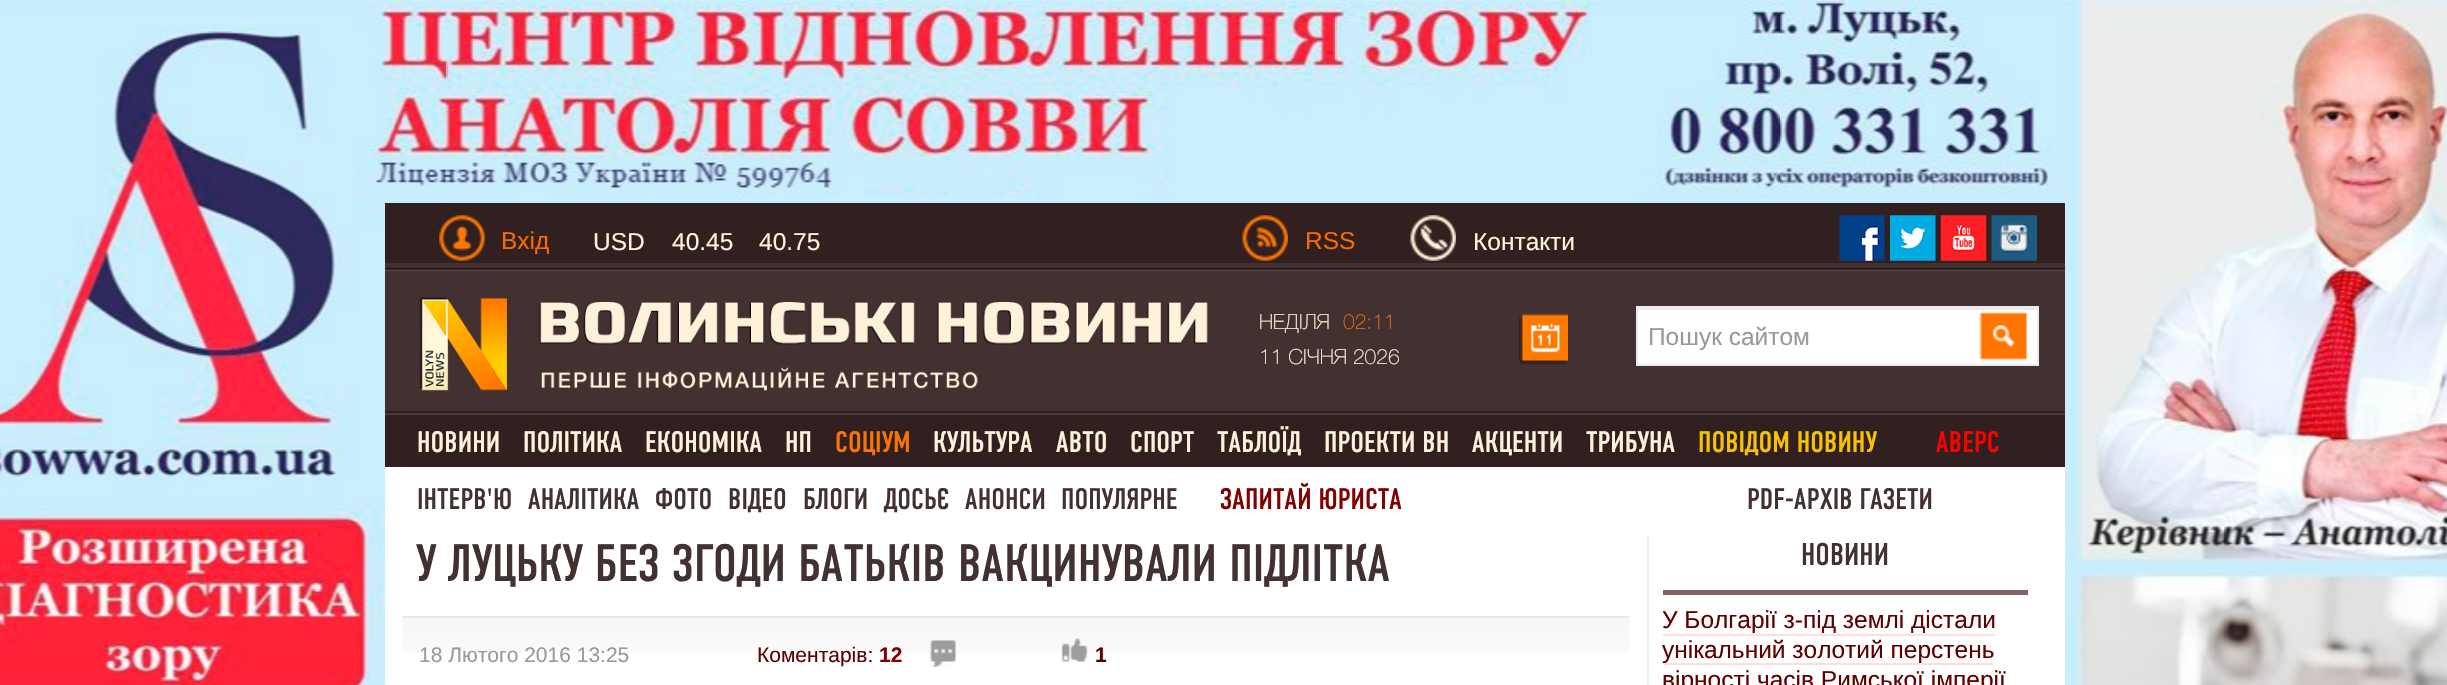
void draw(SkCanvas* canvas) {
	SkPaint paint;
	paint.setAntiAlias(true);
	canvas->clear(0xffffffff);
	canvas->drawImageRect(SkImages::DeferredFromEncodedData(SkData::MakeFromFileName("img1.png")), SkRect::MakeXYWH(0, 0, 2447, 685), SkSamplingOptions());
	paint.setColor(0xffffffff);
	canvas->drawRect(SkRect::MakeXYWH(385, 467, 1680, 218), paint);
	paint.setColor(0xff433030);
	canvas->drawRect(SkRect::MakeXYWH(385, 263, 1680, 152), paint);
	paint.setColor(0xff322020);
	canvas->drawRect(SkRect::MakeXYWH(385, 203, 1680, 60), paint);
	canvas->drawImageRect(SkImages::DeferredFromEncodedData(SkData::MakeFromFileName("img2.png")), SkRect::MakeXYWH(439, 215, 46, 46), SkSamplingOptions());
	SkFont f1(fontMgr->matchFamilyStyle("Liberation Sans", SkFontStyle::Normal()), 24.5);
	f1.setSubpixel(true);
	paint.setColor(0xfff96a01);
	canvas->drawString("Вхід", 501, 249, f1, paint);
	paint.setColor(0xfffef2da);
	canvas->drawString("USD", 593, 250, f1, paint);
	canvas->drawString("40.45", 672, 250, f1, paint);
	canvas->drawString("40.75", 759, 250, f1, paint);
	canvas->drawImageRect(SkImages::DeferredFromEncodedData(SkData::MakeFromFileName("img3.png")), SkRect::MakeXYWH(1242, 215, 46, 46), SkSamplingOptions());
	paint.setColor(0xfff96a01);
	canvas->drawString("RSS", 1305, 249, f1, paint);
	canvas->drawImageRect(SkImages::DeferredFromEncodedData(SkData::MakeFromFileName("img4.png")), SkRect::MakeXYWH(1410, 215, 46, 46), SkSamplingOptions());
	paint.setColor(0xfffef2da);
	canvas->drawString("Контакти", 1473, 250, f1, paint);
	canvas->drawImageRect(SkImages::DeferredFromEncodedData(SkData::MakeFromFileName("img5.png")), SkRect::MakeXYWH(1839, 215, 46, 46), SkSamplingOptions());
	canvas->drawImageRect(SkImages::DeferredFromEncodedData(SkData::MakeFromFileName("img6.png")), SkRect::MakeXYWH(1890, 215, 46, 46), SkSamplingOptions());
	canvas->drawImageRect(SkImages::DeferredFromEncodedData(SkData::MakeFromFileName("img7.png")), SkRect::MakeXYWH(1940, 215, 47, 46), SkSamplingOptions());
	canvas->drawImageRect(SkImages::DeferredFromEncodedData(SkData::MakeFromFileName("img8.png")), SkRect::MakeXYWH(1991, 215, 46, 46), SkSamplingOptions());
	canvas->drawImageRect(SkImages::DeferredFromEncodedData(SkData::MakeFromFileName("img9.png")), SkRect::MakeXYWH(385, 267, 1680, 5), SkSamplingOptions());
	canvas->drawImageRect(SkImages::DeferredFromEncodedData(SkData::MakeFromFileName("img10.png")), SkRect::MakeXYWH(420, 297, 788, 94), SkSamplingOptions());
	SkFont f2(fontMgr->matchFamilyStyle("Helvetica Neue", SkFontStyle(100, SkFontStyle::kNormal_Width, SkFontStyle::kUpright_Slant)), 21);
	f2.setSubpixel(true);
	canvas->drawString("НЕДІЛЯ", 1259, 329, f2, paint);
	paint.setColor(0xffed7105);
	canvas->drawString("02:11", 1343, 329, f2, paint);
	paint.setColor(0xfffef2da);
	canvas->drawString("11 СІЧНЯ 2026", 1259, 364, f2, paint);
	canvas->drawImageRect(SkImages::DeferredFromEncodedData(SkData::MakeFromFileName("img11.png")), SkRect::MakeXYWH(1519, 313, 49, 51), SkSamplingOptions());
	paint.setColor(0xffffffff);
	canvas->drawRect(SkRect::MakeXYWH(1638, 310, 399, 54), paint);
	paint.setColor(0xffececec);
	canvas->drawRect(SkRect::MakeXYWH(1638, 308, 399, 2), paint);
	paint.setStroke(true);
	paint.setStrokeWidth(2);
	paint.setColor(0xffecebeb);
	canvas->drawRect(SkRect::MakeXYWH(1637, 307, 401, 58), paint);
	paint.setStroke(false);
	paint.setColor(0xff999999);
	canvas->drawString("Пошук сайтом", 1648, 345, f1, paint);
	canvas->drawImageRect(SkImages::DeferredFromEncodedData(SkData::MakeFromFileName("img12.png")), SkRect::MakeXYWH(1979, 311, 48, 50), SkSamplingOptions());
	canvas->drawImageRect(SkImages::DeferredFromEncodedData(SkData::MakeFromFileName("img13.png")), SkRect::MakeXYWH(385, 411, 1680, 4), SkSamplingOptions());
	paint.setColor(0xff322020);
	canvas->drawRect(SkRect::MakeXYWH(385, 415, 1680, 52), paint);
	SkFont f3(fontMgr->matchFamilyStyle("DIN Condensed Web", SkFontStyle::Normal()), 29.75);
	f3.setSubpixel(true);
	paint.setColor(0xfffef2da);
	canvas->drawString("НОВИНИ", 417, 452, f3, paint);
	canvas->drawString("ПОЛІТИКА", 523, 452, f3, paint);
	canvas->drawString("ЕКОНОМІКА", 645, 452, f3, paint);
	canvas->drawString("НП", 785, 452, f3, paint);
	paint.setColor(0xfffa7501);
	canvas->drawString("СОЦІУМ", 835, 452, f3, paint);
	paint.setColor(0xfffef2da);
	canvas->drawString("КУЛЬТУРА", 933, 452, f3, paint);
	canvas->drawString("АВТО", 1056, 452, f3, paint);
	canvas->drawString("СПОРТ", 1130, 452, f3, paint);
	canvas->drawString("ТАБЛОЇД", 1217, 452, f3, paint);
	canvas->drawString("ПРОЕКТИ ВН", 1324, 452, f3, paint);
	canvas->drawString("АКЦЕНТИ", 1472, 452, f3, paint);
	canvas->drawString("ТРИБУНА", 1586, 452, f3, paint);
	paint.setColor(0xfff6c301);
	canvas->drawString("ПОВІДОМ НОВИНУ", 1698, 452, f3, paint);
	paint.setColor(0xffff0000);
	canvas->drawString("АВЕРС", 1936, 452, f3, paint);
	paint.setColor(0xff433030);
	canvas->drawString("ІНТЕРВ'Ю", 417, 509, f3, paint);
	canvas->drawString("АНАЛІТИКА", 528, 509, f3, paint);
	canvas->drawString("ФОТО", 655, 509, f3, paint);
	canvas->drawString("ВІДЕО", 728, 509, f3, paint);
	canvas->drawString("БЛОГИ", 803, 509, f3, paint);
	canvas->drawString("ДОСЬЄ", 884, 509, f3, paint);
	canvas->drawString("АНОНСИ", 965, 509, f3, paint);
	canvas->drawString("ПОПУЛЯРНЕ", 1061, 509, f3, paint);
	paint.setColor(0xff830000);
	canvas->drawString("ЗАПИТАЙ ЮРИСТА", 1220, 509, f3, paint);
	paint.setColor(0xff433030);
	canvas->drawString("PDF-АРХІВ ГАЗЕТИ", 1747, 509, f3, paint);
	paint.setColor(0xffefefef);
	canvas->drawRect(SkRect::MakeXYWH(1647, 537, 2, 148), paint);
	SkFont f4(fontMgr->matchFamilyStyle("DIN Condensed Web", SkFontStyle::Normal()), 52.5);
	f4.setSubpixel(true);
	paint.setColor(0xff433030);
	canvas->drawString("У ЛУЦЬКУ БЕЗ ЗГОДИ БАТЬКІВ ВАКЦИНУВАЛИ ПІДЛІТКА", 416, 581, f4, paint);
	canvas->drawImageRect(SkImages::DeferredFromEncodedData(SkData::MakeFromFileName("img14.png")), SkRect::MakeXYWH(402, 616, 1228, 37), SkSamplingOptions());
	SkFont f5(fontMgr->matchFamilyStyle("Liberation Sans", SkFontStyle::Normal()), 21);
	f5.setSubpixel(true);
	paint.setColor(0xff999999);
	canvas->drawString("18 Лютого 2016 13:25", 419, 662, f5, paint);
	paint.setColor(0xff600000);
	canvas->drawString("Коментарів:", 757, 662, f5, paint);
	SkFont f6(fontMgr->matchFamilyStyle("Liberation Sans", SkFontStyle::Bold()), 21);
	f6.setSubpixel(true);
	paint.setColor(0xff830000);
	canvas->drawString("12", 879, 662, f6, paint);
	canvas->drawImageRect(SkImages::DeferredFromEncodedData(SkData::MakeFromFileName("img15.png")), SkRect::MakeXYWH(929, 640, 27, 27), SkSamplingOptions());
	canvas->drawImageRect(SkImages::DeferredFromEncodedData(SkData::MakeFromFileName("img16.png")), SkRect::MakeXYWH(1061, 638, 27, 24), SkSamplingOptions());
	paint.setColor(0xff600000);
	canvas->drawString("1", 1095, 662, f6, paint);
	paint.setColor(0xff816161);
	canvas->drawRect(SkRect::MakeXYWH(1663, 590, 365, 5), paint);
	SkFont f7(fontMgr->matchFamilyStyle("DIN Condensed Web", SkFontStyle::Normal()), 31.5);
	f7.setSubpixel(true);
	paint.setColor(0xff433030);
	canvas->drawString("НОВИНИ", 1801, 565, f7, paint);
	paint.setColor(0xff600000);
	canvas->drawString("У Болгарії з-під землі дістали", 1662, 628, f1, paint);
	paint.setColor(0xffffdddd);
	canvas->drawRect(SkRect::MakeXYWH(1663, 634, 332, 2), paint);
	canvas->drawRect(SkRect::MakeXYWH(1663, 663, 330, 2), paint);
	paint.setColor(0xff600000);
	canvas->drawString("унікальний золотий перстень", 1662, 658, f1, paint);
	canvas->drawString("вірності часів Римської імперії", 1662, 688, f1, paint);
}
